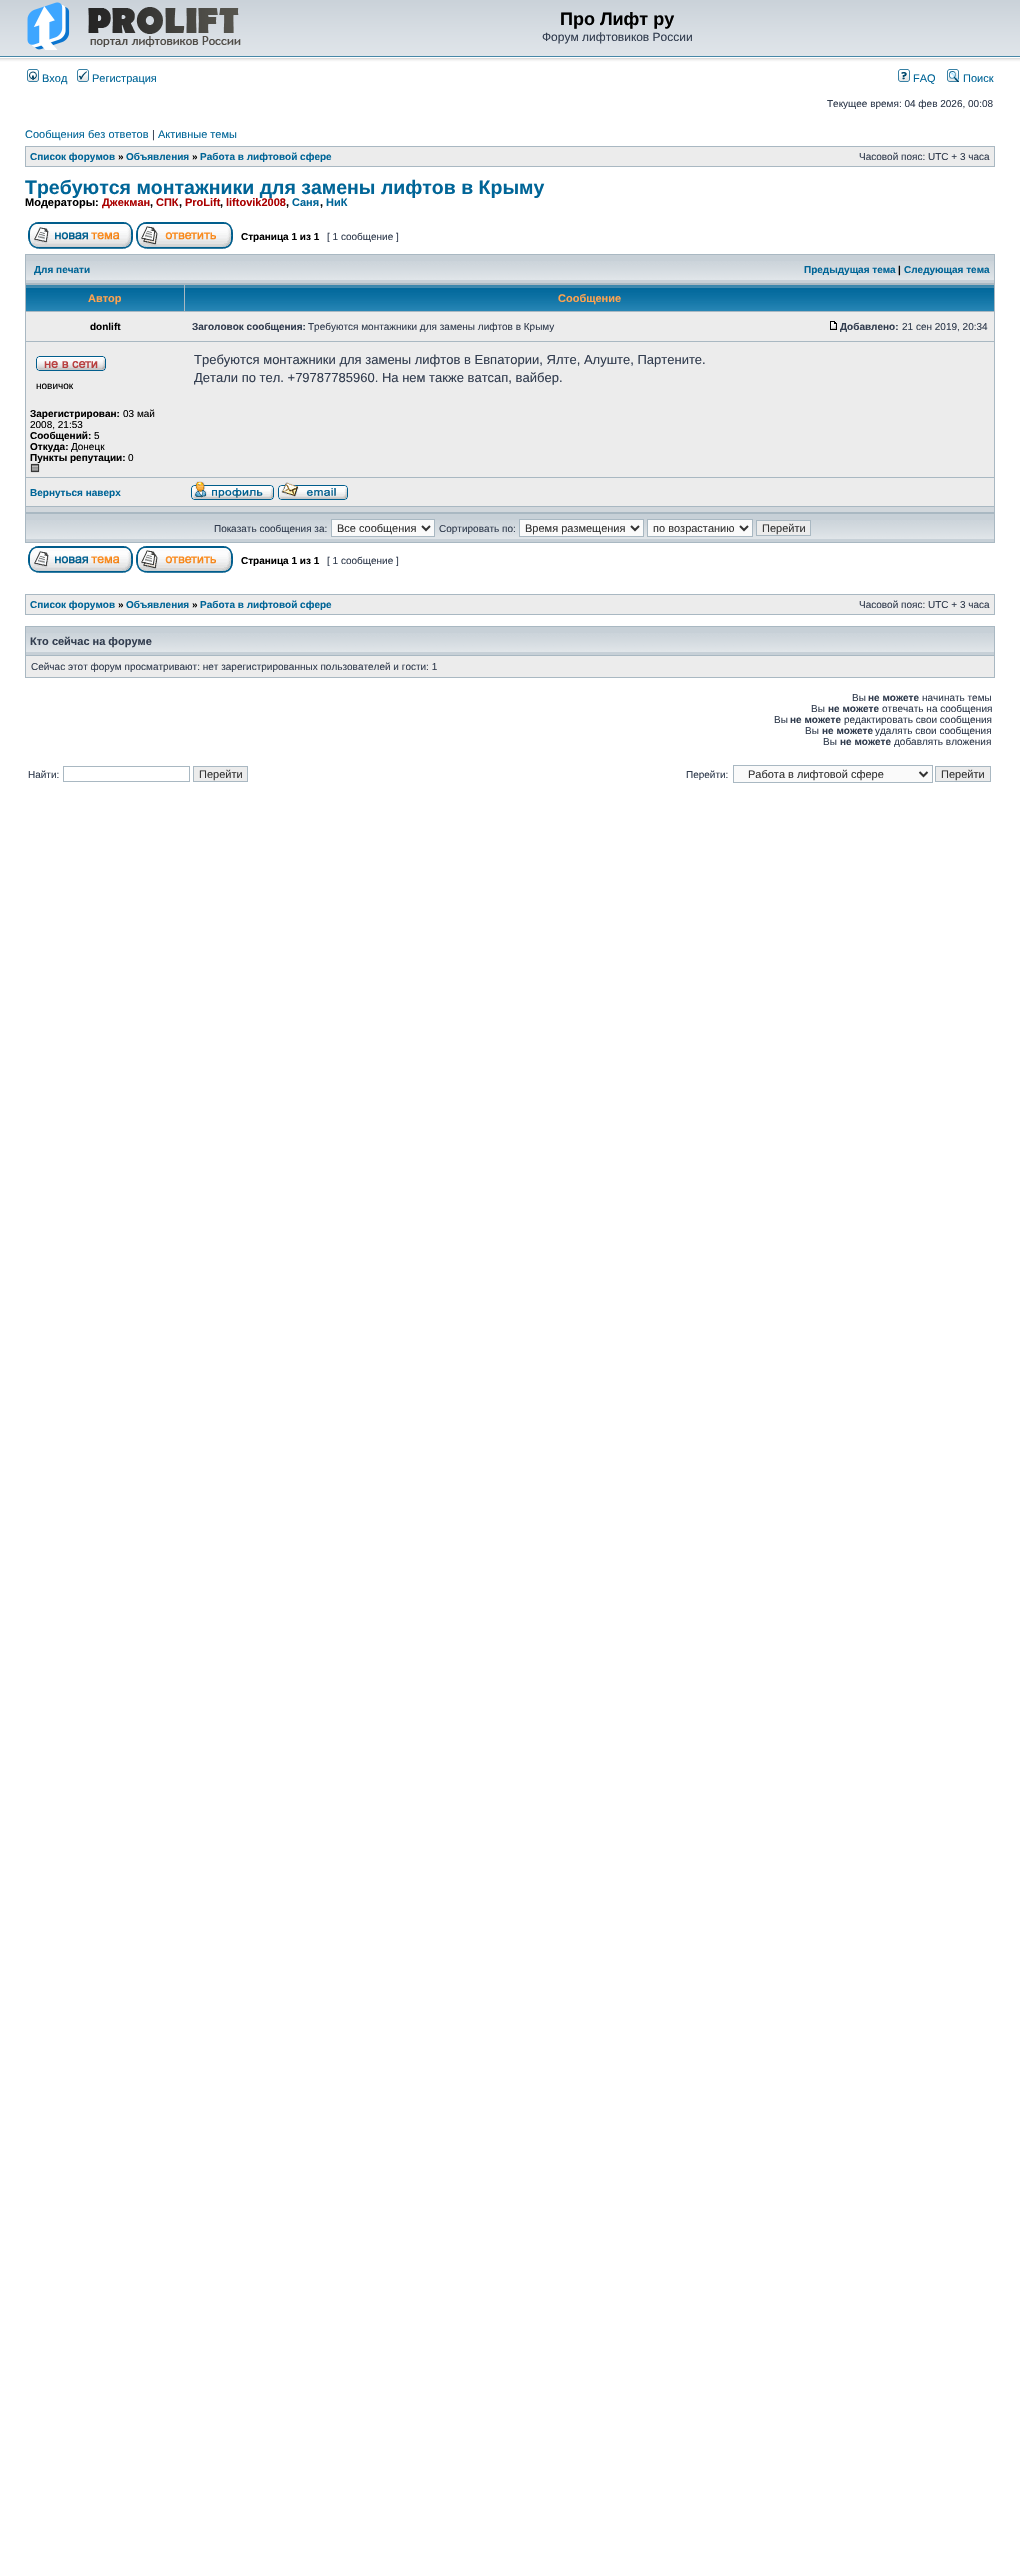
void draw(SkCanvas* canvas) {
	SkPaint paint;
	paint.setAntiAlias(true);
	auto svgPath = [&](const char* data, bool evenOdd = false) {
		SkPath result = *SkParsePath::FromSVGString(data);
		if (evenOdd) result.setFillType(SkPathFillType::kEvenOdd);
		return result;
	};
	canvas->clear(0xffffffff);
	canvas->drawImageRect(SkImages::DeferredFromEncodedData(SkData::MakeFromFileName("img1.png")), SkRect::MakeXYWH(0, 0, 1020, 67), SkSamplingOptions());
	canvas->drawImageRect(SkImages::DeferredFromEncodedData(SkData::MakeFromFileName("img2.png")), SkRect::MakeXYWH(27, 2, 214, 48), SkSamplingOptions());
	SkFont f1(fontMgr->matchFamilyStyle("Liberation Sans", SkFontStyle::Bold()), 18);
	f1.setSubpixel(true);
	paint.setColor(0xff000000);
	canvas->drawString("Про Лифт ру", 560, 25, f1, paint);
	SkFont f2(fontMgr->matchFamilyStyle("Liberation Sans", SkFontStyle::Normal()), 12);
	f2.setSubpixel(true);
	paint.setColor(0xff323d4f);
	canvas->drawString("Форум лифтовиков России", 542, 41, f2, paint);
	canvas->drawImageRect(SkImages::DeferredFromEncodedData(SkData::MakeFromFileName("img3.png")), SkRect::MakeXYWH(27, 69, 12, 13), SkSamplingOptions());
	SkFont f3(fontMgr->matchFamilyStyle("Liberation Sans", SkFontStyle::Normal()), 11);
	f3.setSubpixel(true);
	paint.setColor(0xff006597);
	canvas->drawString("Вход", 42, 82, f3, paint);
	canvas->drawImageRect(SkImages::DeferredFromEncodedData(SkData::MakeFromFileName("img4.png")), SkRect::MakeXYWH(77, 69, 12, 13), SkSamplingOptions());
	canvas->drawString("Регистрация", 92, 82, f3, paint);
	canvas->drawImageRect(SkImages::DeferredFromEncodedData(SkData::MakeFromFileName("img5.png")), SkRect::MakeXYWH(898, 69, 12, 13), SkSamplingOptions());
	canvas->drawString("FAQ", 913, 82, f3, paint);
	canvas->drawImageRect(SkImages::DeferredFromEncodedData(SkData::MakeFromFileName("img6.png")), SkRect::MakeXYWH(947, 69, 12, 13), SkSamplingOptions());
	canvas->drawString("Поиск", 963, 82, f3, paint);
	SkFont f4(fontMgr->matchFamilyStyle("Liberation Sans", SkFontStyle::Normal()), 10);
	f4.setSubpixel(true);
	paint.setColor(0xff323d4f);
	canvas->drawString("Текущее время: 04 фев 2026, 00:08", 827, 107, f4, paint);
	paint.setColor(0xff006597);
	canvas->drawString("Сообщения без ответов", 25, 138, f3, paint);
	paint.setColor(0xff323d4f);
	canvas->drawString("|", 152, 138, f3, paint);
	paint.setColor(0xff006597);
	canvas->drawString("Активные темы", 158, 138, f3, paint);
	paint.setColor(0xffa9b8c2);
	canvas->drawRect(SkRect::MakeXYWH(25, 146, 970, 21), paint);
	paint.setColor(0xffececec);
	canvas->drawRect(SkRect::MakeXYWH(26, 147, 968, 19), paint);
	SkFont f5(fontMgr->matchFamilyStyle("Liberation Sans", SkFontStyle::Bold()), 10);
	f5.setSubpixel(true);
	paint.setColor(0xff006597);
	canvas->drawString("Список форумов", 30, 160, f5, paint);
	paint.setColor(0xff000000);
	canvas->drawString("»", 118, 160, f5, paint);
	paint.setColor(0xff006597);
	canvas->drawString("Объявления", 126, 160, f5, paint);
	paint.setColor(0xff000000);
	canvas->drawString("»", 192, 160, f5, paint);
	paint.setColor(0xff006597);
	canvas->drawString("Работа в лифтовой сфере", 200, 160, f5, paint);
	paint.setColor(0xff323d4f);
	canvas->drawString("Часовой пояс: UTC + 3 часа", 859, 160, f4, paint);
	SkFont f6(fontMgr->matchFamilyStyle("Liberation Sans", SkFontStyle::Bold()), 19.5);
	f6.setSubpixel(true);
	paint.setColor(0xff006597);
	canvas->drawString("Требуются монтажники для замены лифтов в Крыму", 25, 194, f6, paint);
	SkFont f7(fontMgr->matchFamilyStyle("Liberation Sans", SkFontStyle::Bold()), 11);
	f7.setSubpixel(true);
	paint.setColor(0xff000000);
	canvas->drawString("Модераторы:", 25, 206, f7, paint);
	paint.setColor(0xffaa0000);
	canvas->drawString("Джекман", 102, 206, f7, paint);
	paint.setColor(0xff000000);
	canvas->drawString(",", 150, 206, f7, paint);
	paint.setColor(0xffaa0000);
	canvas->drawString("СПК", 156, 206, f7, paint);
	paint.setColor(0xff000000);
	canvas->drawString(",", 179, 206, f7, paint);
	paint.setColor(0xffaa0000);
	canvas->drawString("ProLift", 185, 206, f7, paint);
	paint.setColor(0xff000000);
	canvas->drawString(",", 220, 206, f7, paint);
	paint.setColor(0xffaa0000);
	canvas->drawString("liftovik2008", 226, 206, f7, paint);
	paint.setColor(0xff000000);
	canvas->drawString(",", 286, 206, f7, paint);
	paint.setColor(0xff006597);
	canvas->drawString("Саня", 292, 206, f7, paint);
	paint.setColor(0xff000000);
	canvas->drawString(",", 320, 206, f7, paint);
	paint.setColor(0xff006597);
	canvas->drawString("НиК", 326, 206, f7, paint);
	canvas->drawImageRect(SkImages::DeferredFromEncodedData(SkData::MakeFromFileName("img7.png")), SkRect::MakeXYWH(28, 222, 105, 27), SkSamplingOptions());
	canvas->drawImageRect(SkImages::DeferredFromEncodedData(SkData::MakeFromFileName("img8.png")), SkRect::MakeXYWH(136, 222, 97, 27), SkSamplingOptions());
	paint.setColor(0xff000000);
	canvas->drawString("Страница 1 из 1", 241, 240, f5, paint);
	paint.setColor(0xff323d4f);
	canvas->drawString("[ 1 сообщение ]", 327, 240, f4, paint);
	paint.setColor(0xffa9b8c2);
	canvas->drawRect(SkRect::MakeXYWH(25, 254, 970, 289), paint);
	paint.setColor(0xffc7d0d7);
	canvas->drawRect(SkRect::MakeXYWH(26, 255, 968, 28), paint);
	canvas->drawImageRect(SkImages::DeferredFromEncodedData(SkData::MakeFromFileName("img9.png")), SkRect::MakeXYWH(26, 261, 968, 19), SkSamplingOptions());
	paint.setColor(0xff006597);
	canvas->drawString("Для печати", 34, 273, f5, paint);
	canvas->drawString("Предыдущая тема", 804, 273, f5, paint);
	paint.setColor(0xff000000);
	canvas->drawString("|", 898, 273, f5, paint);
	paint.setColor(0xff006597);
	canvas->drawString("Следующая тема", 904, 273, f5, paint);
	canvas->drawImageRect(SkImages::DeferredFromEncodedData(SkData::MakeFromFileName("img10.png")), SkRect::MakeXYWH(26, 285, 158, 26), SkSamplingOptions());
	paint.setColor(0xffffa34f);
	canvas->drawString("Автор", 88, 302, f7, paint);
	canvas->drawImageRect(SkImages::DeferredFromEncodedData(SkData::MakeFromFileName("img11.png")), SkRect::MakeXYWH(185, 285, 809, 26), SkSamplingOptions());
	canvas->drawString("Сообщение", 558, 302, f7, paint);
	paint.setColor(0xffececec);
	canvas->drawRect(SkRect::MakeXYWH(26, 312, 968, 29), paint);
	paint.setColor(0xff000000);
	canvas->drawString("donlift", 90, 330, f5, paint);
	paint.setColor(0xff323d4f);
	canvas->drawString("Заголовок сообщения:", 192, 330, f5, paint);
	canvas->drawString("Требуются монтажники для замены лифтов в Крыму", 308, 330, f4, paint);
	canvas->drawImageRect(SkImages::DeferredFromEncodedData(SkData::MakeFromFileName("img12.png")), SkRect::MakeXYWH(830, 321, 7, 9), SkSamplingOptions());
	canvas->drawString("Добавлено:", 840, 330, f5, paint);
	canvas->drawString("21 сен 2019, 20:34", 902, 330, f4, paint);
	paint.setColor(0xffececec);
	canvas->drawRect(SkRect::MakeXYWH(26, 342, 968, 135), paint);
	SkFont f8(fontMgr->matchFamilyStyle("Liberation Sans", SkFontStyle::Normal()), 13);
	f8.setSubpixel(true);
	paint.setColor(0xff323d4f);
	canvas->drawString("Требуются монтажники для замены лифтов в Евпатории, Ялте, Алуште, Партените.", 194, 364, f8, paint);
	canvas->drawString("Детали по тел. +79787785960. На нем также ватсап, вайбер.", 194, 382, f8, paint);
	canvas->drawImageRect(SkImages::DeferredFromEncodedData(SkData::MakeFromFileName("img13.png")), SkRect::MakeXYWH(36, 356, 70, 15), SkSamplingOptions());
	paint.setColor(0xff000000);
	canvas->drawString("новичок", 36, 389, f4, paint);
	canvas->drawString("Зарегистрирован:", 30, 417, f5, paint);
	canvas->drawString("03 май", 123, 417, f4, paint);
	canvas->drawString("2008, 21:53", 30, 428, f4, paint);
	canvas->drawString("Сообщений:", 30, 439, f5, paint);
	canvas->drawString("5", 94, 439, f4, paint);
	canvas->drawString("Откуда:", 30, 450, f5, paint);
	canvas->drawString("Донецк", 71, 450, f4, paint);
	canvas->drawString("Пункты репутации:", 30, 461, f5, paint);
	canvas->drawString("0", 128, 461, f4, paint);
	canvas->drawImageRect(SkImages::DeferredFromEncodedData(SkData::MakeFromFileName("img14.png")), SkRect::MakeXYWH(30, 463, 10, 10), SkSamplingOptions());
	paint.setColor(0xffececec);
	canvas->drawRect(SkRect::MakeXYWH(26, 478, 968, 28), paint);
	paint.setColor(0xff006597);
	canvas->drawString("Вернуться наверх", 30, 496, f5, paint);
	canvas->drawImageRect(SkImages::DeferredFromEncodedData(SkData::MakeFromFileName("img15.png")), SkRect::MakeXYWH(191, 481, 83, 19), SkSamplingOptions());
	canvas->drawImageRect(SkImages::DeferredFromEncodedData(SkData::MakeFromFileName("img16.png")), SkRect::MakeXYWH(278, 482, 70, 18), SkSamplingOptions());
	paint.setColor(0xffd1d7dc);
	canvas->drawRect(SkRect::MakeXYWH(26, 507, 968, 5), paint);
	paint.setColor(0xffc7d0d7);
	canvas->drawRect(SkRect::MakeXYWH(26, 514, 968, 28), paint);
	canvas->drawImageRect(SkImages::DeferredFromEncodedData(SkData::MakeFromFileName("img9.png")), SkRect::MakeXYWH(26, 520, 968, 19), SkSamplingOptions());
	paint.setColor(0xff323d4f);
	canvas->drawString("Показать сообщения за:", 214, 532, f4, paint);
	paint.setColor(0xfffafafa);
	canvas->drawRect(SkRect::MakeXYWH(331.5, 519.5, 103, 17), paint);
	paint.setStroke(true);
	paint.setStrokeWidth(1);
	paint.setColor(0xffa9b8c2);
	canvas->drawRect(SkRect::MakeXYWH(331.5, 519.5, 103, 17), paint);
	paint.setStrokeWidth(2);
	paint.setColor(0xff333333);
	canvas->drawPath(svgPath("M422 526L426 530L430 526"), paint);
	paint.setStroke(false);
	canvas->drawString("Все сообщения", 337, 532, f3, paint);
	paint.setColor(0xff323d4f);
	canvas->drawString("Сортировать по:", 439, 532, f4, paint);
	paint.setColor(0xfffafafa);
	canvas->drawRect(SkRect::MakeXYWH(519.5, 519.5, 124, 17), paint);
	paint.setStroke(true);
	paint.setStrokeWidth(1);
	paint.setColor(0xffa9b8c2);
	canvas->drawRect(SkRect::MakeXYWH(519.5, 519.5, 124, 17), paint);
	paint.setStrokeWidth(2);
	paint.setColor(0xff333333);
	canvas->drawPath(svgPath("M631 526L635 530L639 526"), paint);
	paint.setStroke(false);
	canvas->drawString("Время размещения", 525, 532, f3, paint);
	paint.setColor(0xfffafafa);
	canvas->drawRect(SkRect::MakeXYWH(647.5, 519.5, 105, 17), paint);
	paint.setStroke(true);
	paint.setStrokeWidth(1);
	paint.setColor(0xffa9b8c2);
	canvas->drawRect(SkRect::MakeXYWH(647.5, 519.5, 105, 17), paint);
	paint.setStrokeWidth(2);
	paint.setColor(0xff333333);
	canvas->drawPath(svgPath("M740 526L744 530L748 526"), paint);
	paint.setStroke(false);
	canvas->drawString("по возрастанию", 653, 532, f3, paint);
	paint.setColor(0xffececec);
	canvas->drawRect(SkRect::MakeXYWH(756.5, 520.5, 54, 15), paint);
	paint.setStroke(true);
	paint.setStrokeWidth(1);
	paint.setColor(0xffa9b8c2);
	canvas->drawRect(SkRect::MakeXYWH(756.5, 520.5, 54, 15), paint);
	paint.setStroke(false);
	paint.setColor(0xff333333);
	canvas->drawString("Перейти", 762, 532, f3, paint);
	canvas->drawImageRect(SkImages::DeferredFromEncodedData(SkData::MakeFromFileName("img7.png")), SkRect::MakeXYWH(28, 546, 105, 27), SkSamplingOptions());
	canvas->drawImageRect(SkImages::DeferredFromEncodedData(SkData::MakeFromFileName("img8.png")), SkRect::MakeXYWH(136, 546, 97, 27), SkSamplingOptions());
	paint.setColor(0xff000000);
	canvas->drawString("Страница 1 из 1", 241, 564, f5, paint);
	paint.setColor(0xff323d4f);
	canvas->drawString("[ 1 сообщение ]", 327, 564, f4, paint);
	paint.setColor(0xffa9b8c2);
	canvas->drawRect(SkRect::MakeXYWH(25, 594, 970, 21), paint);
	paint.setColor(0xffececec);
	canvas->drawRect(SkRect::MakeXYWH(26, 595, 968, 19), paint);
	paint.setColor(0xff006597);
	canvas->drawString("Список форумов", 30, 608, f5, paint);
	paint.setColor(0xff000000);
	canvas->drawString("»", 118, 608, f5, paint);
	paint.setColor(0xff006597);
	canvas->drawString("Объявления", 126, 608, f5, paint);
	paint.setColor(0xff000000);
	canvas->drawString("»", 192, 608, f5, paint);
	paint.setColor(0xff006597);
	canvas->drawString("Работа в лифтовой сфере", 200, 608, f5, paint);
	paint.setColor(0xff323d4f);
	canvas->drawString("Часовой пояс: UTC + 3 часа", 859, 608, f4, paint);
	paint.setColor(0xffa9b8c2);
	canvas->drawRect(SkRect::MakeXYWH(25, 626, 970, 52), paint);
	paint.setColor(0xffc7d0d7);
	canvas->drawRect(SkRect::MakeXYWH(26, 627, 968, 28), paint);
	canvas->drawImageRect(SkImages::DeferredFromEncodedData(SkData::MakeFromFileName("img9.png")), SkRect::MakeXYWH(26, 633, 968, 19), SkSamplingOptions());
	paint.setColor(0xff323d4f);
	canvas->drawString("Кто сейчас на форуме", 30, 645, f7, paint);
	paint.setColor(0xffececec);
	canvas->drawRect(SkRect::MakeXYWH(26, 656, 968, 21), paint);
	paint.setColor(0xff323d4f);
	canvas->drawString("Сейчас этот форум просматривают: нет зарегистрированных пользователей и гости: 1", 31, 670, f4, paint);
	canvas->drawString("Вы", 852, 701, f4, paint);
	canvas->drawString("не можете", 868, 701, f5, paint);
	canvas->drawString("начинать темы", 922, 701, f4, paint);
	canvas->drawString("Вы", 811, 712, f4, paint);
	canvas->drawString("не можете", 828, 712, f5, paint);
	canvas->drawString("отвечать на сообщения", 882, 712, f4, paint);
	canvas->drawString("Вы", 774, 723, f4, paint);
	canvas->drawString("не можете", 790, 723, f5, paint);
	canvas->drawString("редактировать свои сообщения", 844, 723, f4, paint);
	canvas->drawString("Вы", 805, 734, f4, paint);
	canvas->drawString("не можете", 822, 734, f5, paint);
	canvas->drawString("удалять свои сообщения", 875, 734, f4, paint);
	canvas->drawString("Вы", 823, 745, f4, paint);
	canvas->drawString("не можете", 840, 745, f5, paint);
	canvas->drawString("добавлять вложения", 894, 745, f4, paint);
	canvas->drawString("Найти:", 28, 778, f4, paint);
	paint.setStroke(true);
	paint.setColor(0xffa9b8c2);
	canvas->drawRect(SkRect::MakeXYWH(63.5, 766.5, 126, 15), paint);
	paint.setStroke(false);
	paint.setColor(0xffececec);
	canvas->drawRect(SkRect::MakeXYWH(193.5, 766.5, 54, 15), paint);
	paint.setStroke(true);
	paint.setColor(0xffa9b8c2);
	canvas->drawRect(SkRect::MakeXYWH(193.5, 766.5, 54, 15), paint);
	paint.setStroke(false);
	paint.setColor(0xff333333);
	canvas->drawString("Перейти", 199, 778, f3, paint);
	paint.setColor(0xff323d4f);
	canvas->drawString("Перейти:", 686, 778, f4, paint);
	paint.setColor(0xfffafafa);
	canvas->drawRect(SkRect::MakeXYWH(733.5, 765.5, 199, 17), paint);
	paint.setStroke(true);
	paint.setColor(0xffa9b8c2);
	canvas->drawRect(SkRect::MakeXYWH(733.5, 765.5, 199, 17), paint);
	paint.setStrokeWidth(2);
	paint.setColor(0xff333333);
	canvas->drawPath(svgPath("M919.5 772L923.5 776L927.5 772"), paint);
	paint.setStroke(false);
	canvas->drawString("Работа в лифтовой сфере", 748, 778, f3, paint);
	paint.setColor(0xffececec);
	canvas->drawRect(SkRect::MakeXYWH(935.5, 766.5, 55, 15), paint);
	paint.setStroke(true);
	paint.setStrokeWidth(1);
	paint.setColor(0xffa9b8c2);
	canvas->drawRect(SkRect::MakeXYWH(935.5, 766.5, 55, 15), paint);
	paint.setStroke(false);
	paint.setColor(0xff333333);
	canvas->drawString("Перейти", 941, 778, f3, paint);
}
